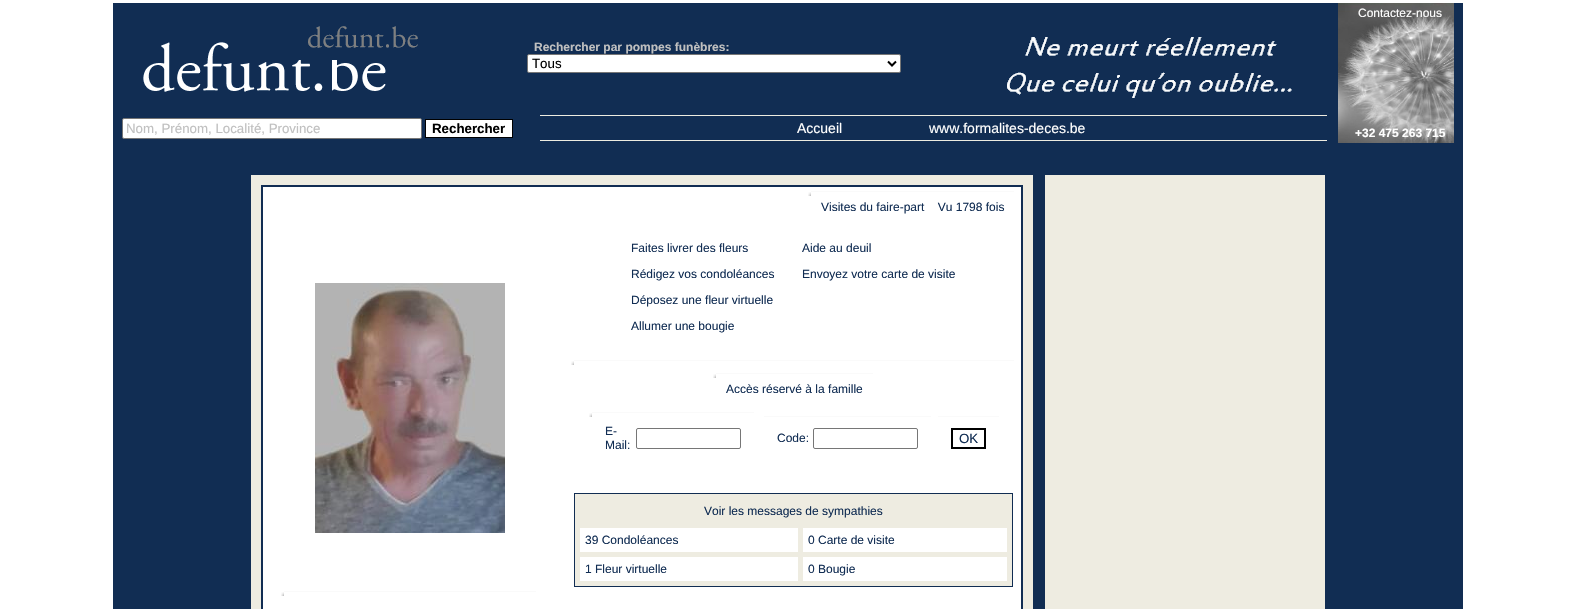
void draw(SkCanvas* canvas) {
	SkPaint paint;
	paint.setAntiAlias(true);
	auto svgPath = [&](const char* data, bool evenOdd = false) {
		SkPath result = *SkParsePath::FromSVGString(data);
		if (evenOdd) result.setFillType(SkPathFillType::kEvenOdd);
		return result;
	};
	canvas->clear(0xffffffff);
	paint.setColor(0xff112d53);
	canvas->drawRect(SkRect::MakeXYWH(113, 3, 1350, 606), paint);
	canvas->drawImageRect(SkImages::DeferredFromEncodedData(SkData::MakeFromFileName("img1.png")), SkRect::MakeXYWH(143, 26, 275, 66), SkSamplingOptions());
	SkFont f1(fontMgr->matchFamilyStyle("Liberation Sans", SkFontStyle::Bold()), 12);
	f1.setSubpixel(true);
	paint.setColor(0xffc0c0c0);
	canvas->drawString("Rechercher par pompes funèbres:", 534, 51, f1, paint);
	paint.setColor(0xffffffff);
	canvas->drawRoundRect(SkRect::MakeXYWH(527.5, 54.5, 373, 18), 1.5, 1.5, paint);
	paint.setStroke(true);
	paint.setStrokeWidth(1);
	paint.setColor(0xff767676);
	canvas->drawRoundRect(SkRect::MakeXYWH(527.5, 54.5, 373, 18), 1.5, 1.5, paint);
	paint.setStrokeWidth(2);
	paint.setColor(0xff000000);
	canvas->drawPath(svgPath("M888 61.5L892 65.5L896 61.5"), paint);
	SkFont f2(fontMgr->matchFamilyStyle("Liberation Sans", SkFontStyle::Normal()), 13.3);
	f2.setSubpixel(true);
	paint.setStroke(false);
	canvas->drawString("Tous", 532, 68, f2, paint);
	canvas->drawImageRect(SkImages::DeferredFromEncodedData(SkData::MakeFromFileName("img2.png")), SkRect::MakeXYWH(1007, 37, 285, 61), SkSamplingOptions());
	canvas->drawImageRect(SkImages::DeferredFromEncodedData(SkData::MakeFromFileName("img3.png")), SkRect::MakeXYWH(1338, 3, 116, 140), SkSamplingOptions());
	SkFont f3(fontMgr->matchFamilyStyle("Liberation Sans", SkFontStyle::Normal()), 12);
	f3.setSubpixel(true);
	paint.setColor(0xffffffff);
	canvas->drawString("Contactez-nous", 1358, 17, f3, paint);
	canvas->drawString("+32 475 263 715", 1355, 137, f1, paint);
	canvas->drawRoundRect(SkRect::MakeXYWH(122.5, 118.5, 299, 20), 1.5, 1.5, paint);
	paint.setStroke(true);
	paint.setStrokeWidth(1);
	paint.setColor(0xff767676);
	canvas->drawRoundRect(SkRect::MakeXYWH(122.5, 118.5, 299, 20), 1.5, 1.5, paint);
	paint.setStroke(false);
	paint.setColor(0xffc0c0c0);
	canvas->drawString("Nom, Prénom, Localité, Province", 126, 133, f2, paint);
	paint.setColor(0xffffffff);
	canvas->drawRect(SkRect::MakeXYWH(425.5, 119.5, 87, 18), paint);
	paint.setStroke(true);
	paint.setColor(0xff000000);
	canvas->drawRect(SkRect::MakeXYWH(425.5, 119.5, 87, 18), paint);
	SkFont f4(fontMgr->matchFamilyStyle("Liberation Sans", SkFontStyle::Bold()), 13.3);
	f4.setSubpixel(true);
	paint.setStroke(false);
	canvas->drawString("Rechercher", 432, 133, f4, paint);
	paint.setColor(0xffeeece1);
	canvas->drawRect(SkRect::MakeXYWH(540, 115, 787, 1), paint);
	canvas->drawRect(SkRect::MakeXYWH(540, 140, 787, 1), paint);
	SkFont f5(fontMgr->matchFamilyStyle("Liberation Sans", SkFontStyle::Normal()), 14);
	f5.setSubpixel(true);
	paint.setColor(0xffffffff);
	canvas->drawString("Accueil", 797, 133, f5, paint);
	canvas->drawString("www.formalites-deces.be", 929, 133, f5, paint);
	paint.setColor(0xffeeece1);
	canvas->drawRect(SkRect::MakeXYWH(251, 175, 782, 434), paint);
	paint.setColor(0xffffffff);
	canvas->drawRect(SkRect::MakeXYWH(262, 186, 760, 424), paint);
	paint.setStroke(true);
	paint.setStrokeWidth(2);
	paint.setColor(0xff112d53);
	canvas->drawRect(SkRect::MakeXYWH(262, 186, 760, 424), paint);
	paint.setStroke(false);
	paint.setColor(0xfffafafa);
	canvas->drawRect(SkRect::MakeXYWH(811, 191, 203, 1), paint);
	canvas->drawImageRect(SkImages::DeferredFromEncodedData(SkData::MakeFromFileName("img4.png")), SkRect::MakeXYWH(808, 192, 3, 4), SkSamplingOptions());
	paint.setColor(0xff112d53);
	canvas->drawString("Visites du faire-part    Vu 1798 fois", 821, 211, f3, paint);
	canvas->drawImageRect(SkImages::DeferredFromEncodedData(SkData::MakeFromFileName("img5.png")), SkRect::MakeXYWH(315, 283, 190, 250), SkSamplingOptions());
	canvas->drawString("Faites livrer des fleurs", 631, 252, f3, paint);
	canvas->drawString("Aide au deuil", 802, 252, f3, paint);
	canvas->drawString("Rédigez vos condoléances", 631, 278, f3, paint);
	canvas->drawString("Envoyez votre carte de visite", 802, 278, f3, paint);
	canvas->drawString("Déposez une fleur virtuelle", 631, 304, f3, paint);
	canvas->drawString("Allumer une bougie", 631, 330, f3, paint);
	paint.setColor(0xfffafafa);
	canvas->drawRect(SkRect::MakeXYWH(574, 360, 440, 1), paint);
	canvas->drawImageRect(SkImages::DeferredFromEncodedData(SkData::MakeFromFileName("img4.png")), SkRect::MakeXYWH(571, 361, 3, 4), SkSamplingOptions());
	canvas->drawRect(SkRect::MakeXYWH(716, 373, 157, 1), paint);
	canvas->drawImageRect(SkImages::DeferredFromEncodedData(SkData::MakeFromFileName("img4.png")), SkRect::MakeXYWH(713, 374, 3, 4), SkSamplingOptions());
	paint.setColor(0xff112d53);
	canvas->drawString("Accès réservé à la famille", 726, 393, f3, paint);
	paint.setColor(0xfffafafa);
	canvas->drawRect(SkRect::MakeXYWH(592, 412, 162, 1), paint);
	canvas->drawImageRect(SkImages::DeferredFromEncodedData(SkData::MakeFromFileName("img4.png")), SkRect::MakeXYWH(589, 413, 3, 4), SkSamplingOptions());
	paint.setColor(0xff112d53);
	canvas->drawString("E-", 605, 435, f3, paint);
	canvas->drawString("Mail:", 605, 449, f3, paint);
	paint.setStroke(true);
	paint.setStrokeWidth(1);
	paint.setColor(0xff767676);
	canvas->drawRoundRect(SkRect::MakeXYWH(636.5, 428.5, 104, 20), 1.5, 1.5, paint);
	paint.setStroke(false);
	paint.setColor(0xfffafafa);
	canvas->drawRect(SkRect::MakeXYWH(764, 416, 167, 1), paint);
	paint.setColor(0xff112d53);
	canvas->drawString("Code:", 777, 442, f3, paint);
	paint.setStroke(true);
	paint.setColor(0xff767676);
	canvas->drawRoundRect(SkRect::MakeXYWH(813.5, 428.5, 104, 20), 1.5, 1.5, paint);
	paint.setStroke(false);
	paint.setColor(0xfffafafa);
	canvas->drawRect(SkRect::MakeXYWH(938, 416, 61, 1), paint);
	paint.setStroke(true);
	paint.setStrokeWidth(2);
	paint.setColor(0xff000000);
	canvas->drawRect(SkRect::MakeXYWH(952, 429, 33, 19), paint);
	paint.setStroke(false);
	paint.setColor(0xff112d53);
	canvas->drawString("OK", 959, 443, f2, paint);
	paint.setColor(0xffeeece1);
	canvas->drawRect(SkRect::MakeXYWH(574.5, 493.5, 438, 93), paint);
	paint.setStroke(true);
	paint.setStrokeWidth(1);
	paint.setColor(0xff112d53);
	canvas->drawRect(SkRect::MakeXYWH(574.5, 493.5, 438, 93), paint);
	paint.setStroke(false);
	canvas->drawString("Voir les messages de sympathies", 704, 515, f3, paint);
	paint.setColor(0xffffffff);
	canvas->drawRect(SkRect::MakeXYWH(580, 528, 218, 24), paint);
	paint.setColor(0xff112d53);
	canvas->drawString("39 Condoléances", 585, 544, f3, paint);
	paint.setColor(0xffffffff);
	canvas->drawRect(SkRect::MakeXYWH(803, 528, 204, 24), paint);
	paint.setColor(0xff112d53);
	canvas->drawString("0 Carte de visite", 808, 544, f3, paint);
	paint.setColor(0xffffffff);
	canvas->drawRect(SkRect::MakeXYWH(580, 557, 218, 24), paint);
	paint.setColor(0xff112d53);
	canvas->drawString("1 Fleur virtuelle", 585, 573, f3, paint);
	paint.setColor(0xffffffff);
	canvas->drawRect(SkRect::MakeXYWH(803, 557, 204, 24), paint);
	paint.setColor(0xff112d53);
	canvas->drawString("0 Bougie", 808, 573, f3, paint);
	paint.setColor(0xfffafafa);
	canvas->drawRect(SkRect::MakeXYWH(284, 591, 252, 1), paint);
	canvas->drawImageRect(SkImages::DeferredFromEncodedData(SkData::MakeFromFileName("img4.png")), SkRect::MakeXYWH(281, 592, 3, 4), SkSamplingOptions());
	paint.setColor(0xffeeece1);
	canvas->drawRect(SkRect::MakeXYWH(1045, 175, 280, 434), paint);
}
